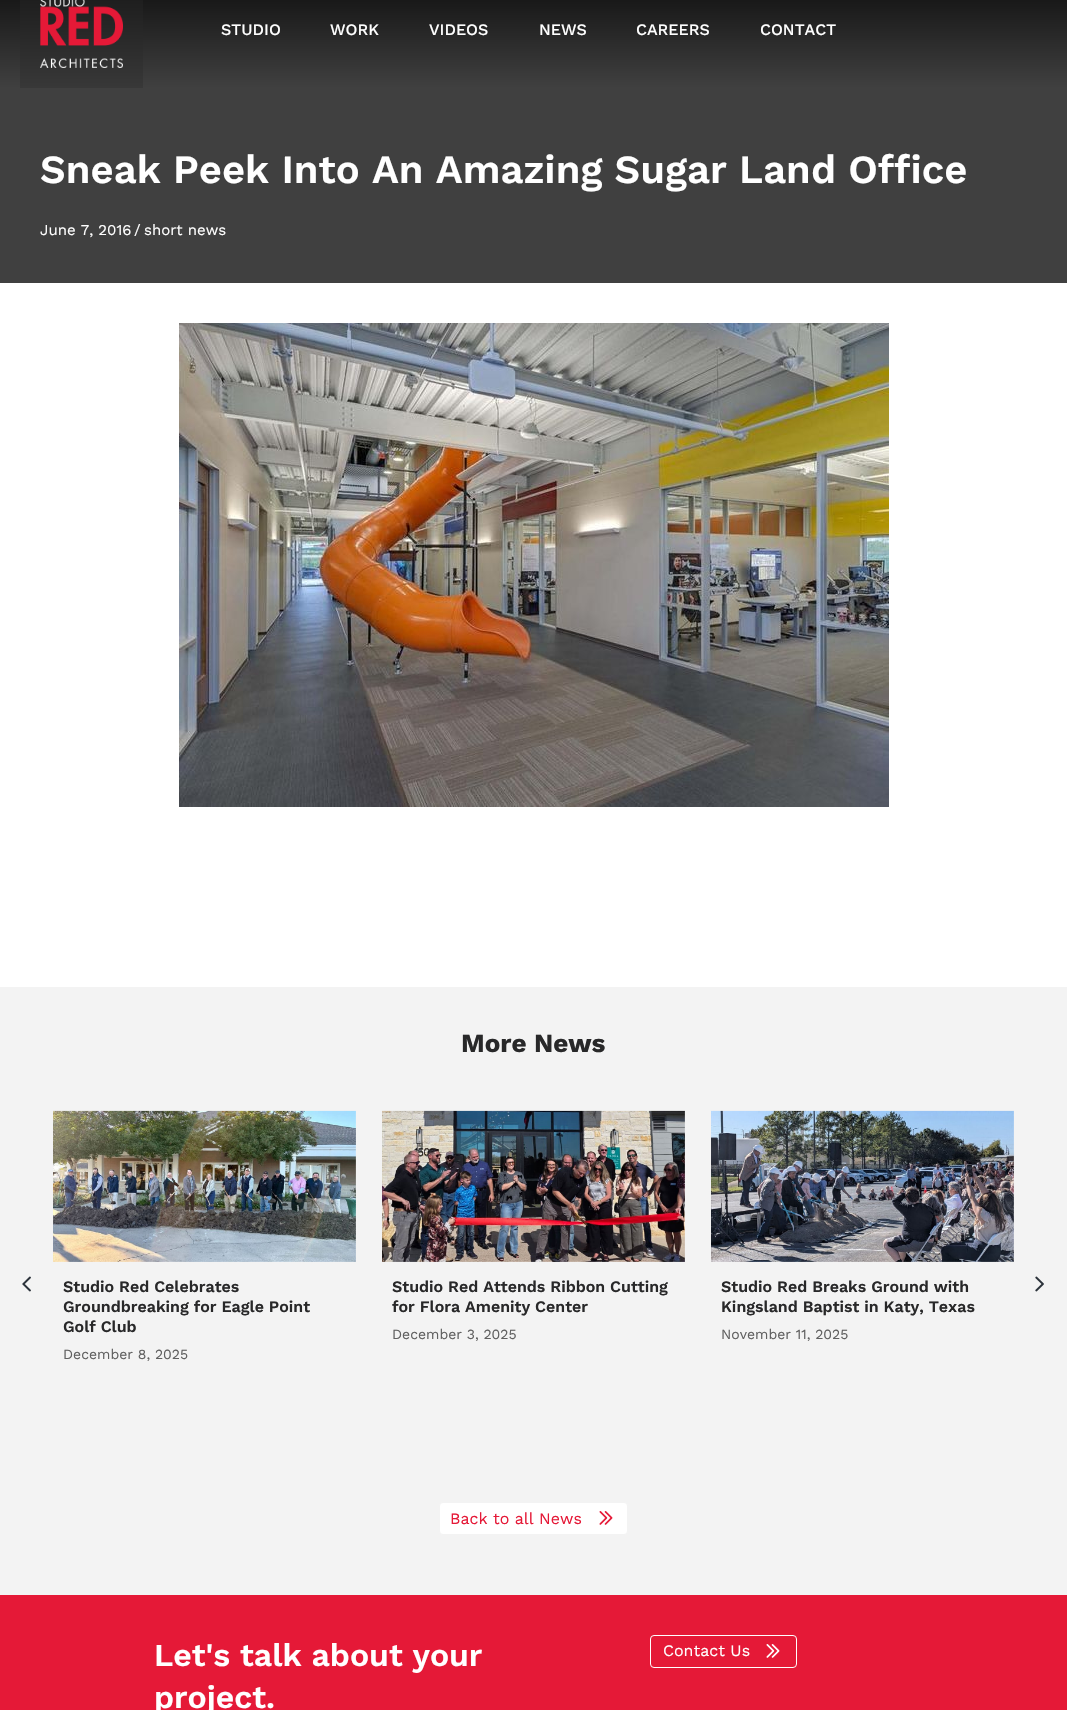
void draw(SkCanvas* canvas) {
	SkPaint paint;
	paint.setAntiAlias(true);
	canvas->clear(0xffffffff);
	{
		const SkColor colors[] = {0xff0c0c0c, 0xff404040};
		const float stops[] = {0, 1};
		const SkPoint ends[] = {{534, -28}, {534, 88}};
		paint.setShader(SkGradientShader::MakeLinear(ends, colors, stops, 2, SkTileMode::kClamp));
		paint.setAlpha(255);
	}
	canvas->drawRect(SkRect::MakeXYWH(0, 0, 1067, 88), paint);
	{
		const SkColor colors[] = {0xff161616, 0xff383838};
		const float stops[] = {0, 1};
		const SkPoint ends[] = {{534, -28}, {534, 88}};
		paint.setShader(SkGradientShader::MakeLinear(ends, colors, stops, 2, SkTileMode::kClamp));
		paint.setAlpha(255);
	}
	canvas->drawRect(SkRect::MakeXYWH(20, 0, 123, 88), paint);
	canvas->drawImageRect(SkImages::DeferredFromEncodedData(SkData::MakeFromFileName("img1.png")), SkRect::MakeXYWH(40, 0, 83, 68), SkSamplingOptions());
	SkFont f1(fontMgr->matchFamilyStyle("Work Sans", SkFontStyle(500, SkFontStyle::kNormal_Width, SkFontStyle::kUpright_Slant)), 16);
	f1.setSubpixel(true);
	paint.setShader(nullptr);
	paint.setColor(0xffffffff);
	canvas->drawString("STUDIO", 221, 35, f1, paint);
	canvas->drawString("WORK", 330, 35, f1, paint);
	canvas->drawString("VIDEOS", 429, 35, f1, paint);
	canvas->drawString("NEWS", 539, 35, f1, paint);
	canvas->drawString("CAREERS", 636, 35, f1, paint);
	canvas->drawString("CONTACT", 760, 35, f1, paint);
	paint.setColor(0xff404040);
	canvas->drawRect(SkRect::MakeXYWH(0, 88, 1067, 195), paint);
	SkFont f2(fontMgr->matchFamilyStyle("Work Sans", SkFontStyle(600, SkFontStyle::kNormal_Width, SkFontStyle::kUpright_Slant)), 40);
	f2.setSubpixel(true);
	paint.setColor(0xffffffff);
	canvas->drawString("Sneak Peek Into An Amazing Sugar Land Office", 40, 183, f2, paint);
	SkFont f3(fontMgr->matchFamilyStyle("Work Sans", SkFontStyle::Normal()), 15);
	f3.setSubpixel(true);
	canvas->drawString("June 7, 2016", 40, 235, f3, paint);
	canvas->drawString("/", 134, 235, f3, paint);
	canvas->drawString("short news", 144, 235, f3, paint);
	canvas->drawImageRect(SkImages::DeferredFromEncodedData(SkData::MakeFromFileName("img2.png")), SkRect::MakeXYWH(179, 323, 710, 484), SkSamplingOptions());
	paint.setColor(0xfff3f3f3);
	canvas->drawRect(SkRect::MakeXYWH(0, 987, 1067, 608), paint);
	SkFont f4(fontMgr->matchFamilyStyle("Work Sans", SkFontStyle::Bold()), 26);
	f4.setSubpixel(true);
	paint.setColor(0xff282829);
	canvas->drawString("More News", 461, 1052, f4, paint);
	canvas->drawImageRect(SkImages::DeferredFromEncodedData(SkData::MakeFromFileName("img3.png")), SkRect::MakeXYWH(22, 1276, 9, 16), SkSamplingOptions());
	canvas->drawImageRect(SkImages::DeferredFromEncodedData(SkData::MakeFromFileName("img4.png")), SkRect::MakeXYWH(1035, 1276, 9, 16), SkSamplingOptions());
	canvas->drawImageRect(SkImages::DeferredFromEncodedData(SkData::MakeFromFileName("img5.png")), SkRect::MakeXYWH(53, 1110, 303, 152), SkSamplingOptions());
	SkFont f5(fontMgr->matchFamilyStyle("Work Sans", SkFontStyle(600, SkFontStyle::kNormal_Width, SkFontStyle::kUpright_Slant)), 16);
	f5.setSubpixel(true);
	canvas->drawString("Studio Red Celebrates", 63, 1292, f5, paint);
	canvas->drawString("Groundbreaking for Eagle Point", 63, 1312, f5, paint);
	canvas->drawString("Golf Club", 63, 1332, f5, paint);
	SkFont f6(fontMgr->matchFamilyStyle("Work Sans", SkFontStyle::Normal()), 14);
	f6.setSubpixel(true);
	paint.setColor(0xff606060);
	canvas->drawString("December 8, 2025", 63, 1359, f6, paint);
	canvas->drawImageRect(SkImages::DeferredFromEncodedData(SkData::MakeFromFileName("img6.png")), SkRect::MakeXYWH(382, 1110, 303, 152), SkSamplingOptions());
	paint.setColor(0xff282829);
	canvas->drawString("Studio Red Attends Ribbon Cutting", 392, 1292, f5, paint);
	canvas->drawString("for Flora Amenity Center", 392, 1312, f5, paint);
	paint.setColor(0xff606060);
	canvas->drawString("December 3, 2025", 392, 1339, f6, paint);
	canvas->drawImageRect(SkImages::DeferredFromEncodedData(SkData::MakeFromFileName("img7.png")), SkRect::MakeXYWH(711, 1110, 303, 152), SkSamplingOptions());
	paint.setColor(0xff282829);
	canvas->drawString("Studio Red Breaks Ground with", 721, 1292, f5, paint);
	canvas->drawString("Kingsland Baptist in Katy, Texas", 721, 1312, f5, paint);
	paint.setColor(0xff606060);
	canvas->drawString("November 11, 2025", 721, 1339, f6, paint);
	paint.setColor(0xffffffff);
	canvas->drawRoundRect(SkRect::MakeXYWH(439.5, 1502.5, 188, 32), 3.5, 3.5, paint);
	paint.setStroke(true);
	paint.setStrokeWidth(1);
	paint.setColor(0xfff3f3f3);
	canvas->drawRoundRect(SkRect::MakeXYWH(439.5, 1502.5, 188, 32), 3.5, 3.5, paint);
	SkFont f7(fontMgr->matchFamilyStyle("Work Sans", SkFontStyle::Normal()), 16);
	f7.setSubpixel(true);
	paint.setStroke(false);
	paint.setColor(0xffe51937);
	canvas->drawString("Back to all News", 450, 1524, f7, paint);
	canvas->drawImageRect(SkImages::DeferredFromEncodedData(SkData::MakeFromFileName("img8.png")), SkRect::MakeXYWH(599, 1511, 14, 14), SkSamplingOptions());
	canvas->drawRect(SkRect::MakeXYWH(0, 1595, 1067, 115), paint);
	SkFont f8(fontMgr->matchFamilyStyle("Work Sans", SkFontStyle(600, SkFontStyle::kNormal_Width, SkFontStyle::kUpright_Slant)), 32);
	f8.setSubpixel(true);
	paint.setColor(0xffffffff);
	canvas->drawString("Let's talk about your", 154, 1666, f8, paint);
	canvas->drawString("project.", 154, 1708, f8, paint);
	paint.setStroke(true);
	canvas->drawRoundRect(SkRect::MakeXYWH(650.5, 1635.5, 146, 32), 3.5, 3.5, paint);
	paint.setStroke(false);
	canvas->drawString("Contact Us", 663, 1656, f7, paint);
	canvas->drawImageRect(SkImages::DeferredFromEncodedData(SkData::MakeFromFileName("img9.png")), SkRect::MakeXYWH(766, 1644, 14, 14), SkSamplingOptions());
}
